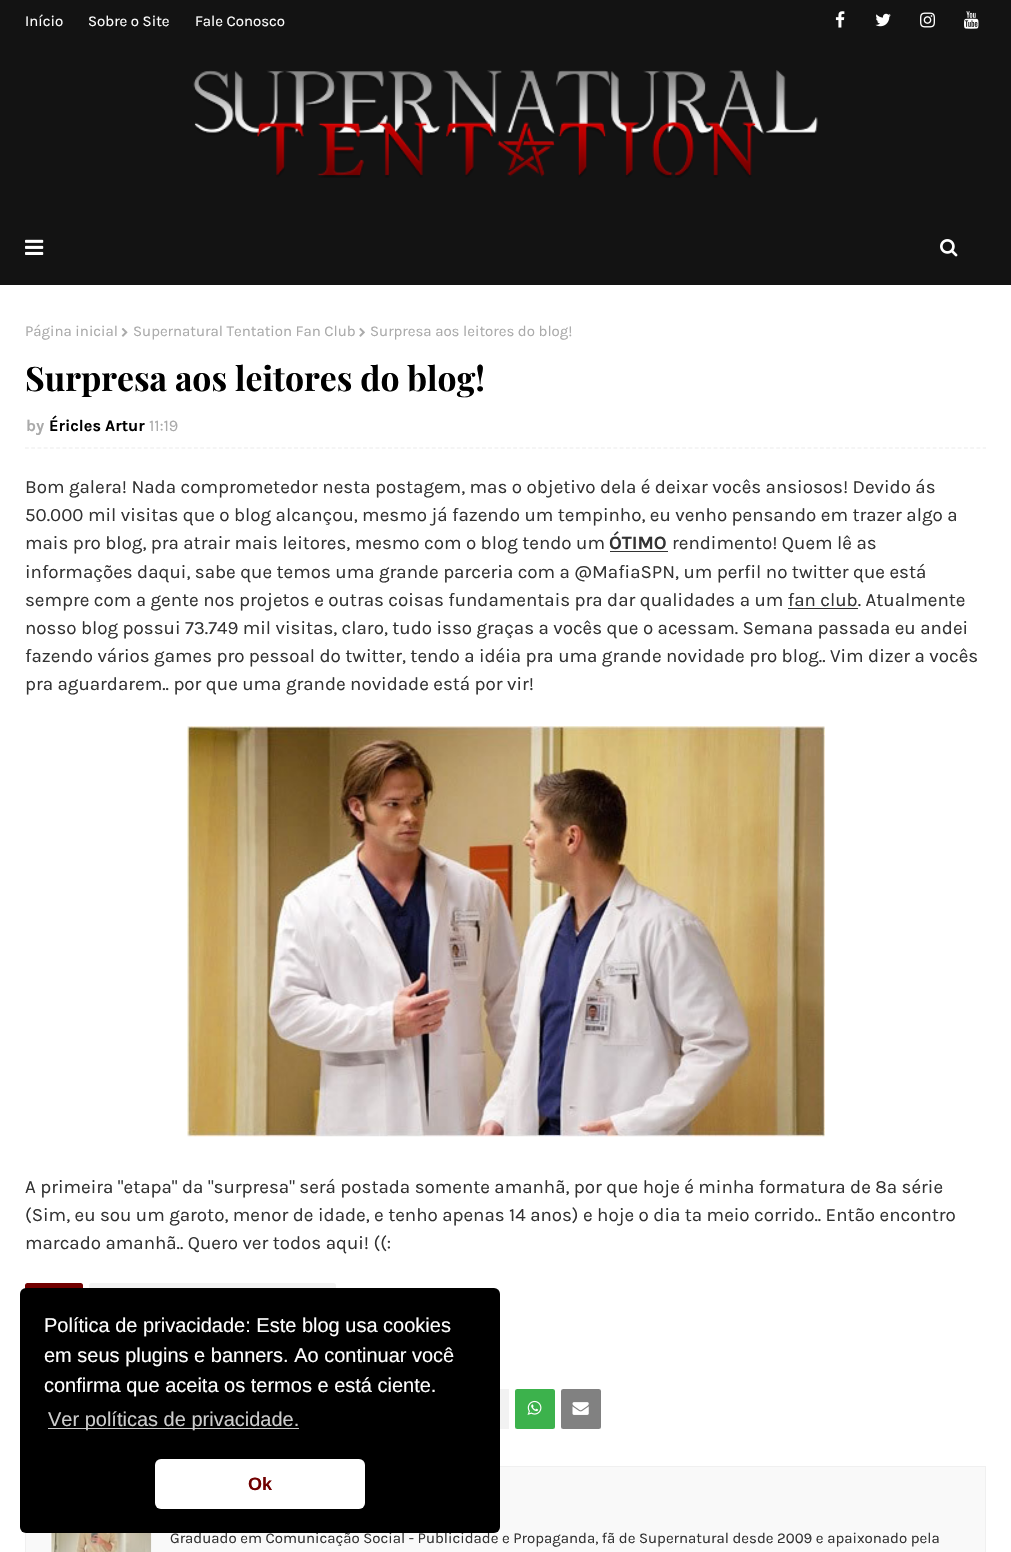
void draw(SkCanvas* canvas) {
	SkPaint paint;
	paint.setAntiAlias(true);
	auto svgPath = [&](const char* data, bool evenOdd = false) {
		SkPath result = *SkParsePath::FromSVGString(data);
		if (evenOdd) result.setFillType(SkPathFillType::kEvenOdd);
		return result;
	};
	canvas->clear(0xffffffff);
	paint.setColor(0xfff2f2f2);
	canvas->drawRect(SkRect::MakeXYWH(561, 1389, 40, 40), paint);
	canvas->drawRect(SkRect::MakeXYWH(515, 1389, 40, 40), paint);
	paint.setColor(0xff131313);
	canvas->drawRect(SkRect::MakeXYWH(0, 0, 1011, 285), paint);
	SkFont f1(fontMgr->matchFamilyStyle("Karla", SkFontStyle::Normal()), 15);
	f1.setSubpixel(true);
	paint.setColor(0xffffffff);
	canvas->drawString("Início", 25, 26, f1, paint);
	canvas->drawString("Sobre o Site", 88, 26, f1, paint);
	canvas->drawString("Fale Conosco", 195, 26, f1, paint);
	canvas->drawImageRect(SkImages::DeferredFromEncodedData(SkData::MakeFromFileName("img1.png")), SkRect::MakeXYWH(835, 11, 10, 17), SkSamplingOptions());
	canvas->drawImageRect(SkImages::DeferredFromEncodedData(SkData::MakeFromFileName("img2.png")), SkRect::MakeXYWH(875, 13, 16, 14), SkSamplingOptions());
	canvas->drawImageRect(SkImages::DeferredFromEncodedData(SkData::MakeFromFileName("img3.png")), SkRect::MakeXYWH(920, 12, 15, 16), SkSamplingOptions());
	canvas->drawImageRect(SkImages::DeferredFromEncodedData(SkData::MakeFromFileName("img4.png")), SkRect::MakeXYWH(964, 11, 15, 18), SkSamplingOptions());
	canvas->drawImageRect(SkImages::DeferredFromEncodedData(SkData::MakeFromFileName("img5.png")), SkRect::MakeXYWH(193, 70, 625, 108), SkSamplingOptions());
	canvas->drawImageRect(SkImages::DeferredFromEncodedData(SkData::MakeFromFileName("img6.png")), SkRect::MakeXYWH(25, 239, 19, 16), SkSamplingOptions());
	canvas->drawImageRect(SkImages::DeferredFromEncodedData(SkData::MakeFromFileName("img7.png")), SkRect::MakeXYWH(940, 239, 18, 18), SkSamplingOptions());
	paint.setColor(0xffaaaaaa);
	canvas->drawString("Página inicial", 25, 336, f1, paint);
	canvas->drawImageRect(SkImages::DeferredFromEncodedData(SkData::MakeFromFileName("img8.png")), SkRect::MakeXYWH(121, 328, 7, 9), SkSamplingOptions());
	canvas->drawString("Supernatural Tentation Fan Club", 133, 336, f1, paint);
	canvas->drawImageRect(SkImages::DeferredFromEncodedData(SkData::MakeFromFileName("img9.png")), SkRect::MakeXYWH(359, 327, 6, 10), SkSamplingOptions());
	canvas->drawString("Surpresa aos leitores do blog!", 370, 336, f1, paint);
	SkFont f2(fontMgr->matchFamilyStyle("Playfair Display", SkFontStyle::Bold()), 33.75);
	f2.setSubpixel(true);
	paint.setColor(0xff000000);
	canvas->drawString("Surpresa aos leitores do blog!", 25, 391, f2, paint);
	SkFont f3(fontMgr->matchFamilyStyle("Karla", SkFontStyle::Bold()), 16.25);
	f3.setSubpixel(true);
	paint.setColor(0xffaaaaaa);
	canvas->drawString("by", 26, 431, f3, paint);
	paint.setColor(0xff000000);
	canvas->drawString("Éricles Artur", 49, 431, f3, paint);
	SkFont f4(fontMgr->matchFamilyStyle("Karla", SkFontStyle::Normal()), 16.25);
	f4.setSubpixel(true);
	paint.setColor(0xffaaaaaa);
	canvas->drawString("11:19", 149, 431, f4, paint);
	paint.setStroke(true);
	paint.setStrokeWidth(1.2);
	paint.setColor(0xffebebeb);
	paint.setPathEffect(SkDashPathEffect::Make({{3.75f, 2.51f}}, 0));
	canvas->drawPath(svgPath("M25 448H986"), paint);
	paint.setPathEffect(nullptr);
	SkFont f5(fontMgr->matchFamilyStyle("Karla", SkFontStyle::Normal()), 18.75);
	f5.setSubpixel(true);
	paint.setStroke(false);
	paint.setColor(0xff333333);
	canvas->drawString("Bom galera! Nada comprometedor nesta postagem, mas o objetivo dela é deixar vocês ansiosos! Devido ás", 25, 493, f5, paint);
	canvas->drawString("50.000 mil visitas que o blog alcançou, mesmo já fazendo um tempinho, eu venho pensando em trazer algo a", 25, 521, f5, paint);
	canvas->drawString("mais pro blog, pra atrair mais leitores, mesmo com o blog tendo um", 25, 549, f5, paint);
	SkFont f6(fontMgr->matchFamilyStyle("Karla", SkFontStyle::Bold()), 18.75);
	f6.setSubpixel(true);
	canvas->drawString("ÓTIMO", 609, 549, f6, paint);
	canvas->drawRect(SkRect::MakeXYWH(610, 551, 58, 1), paint);
	canvas->drawString("rendimento! Quem lê as", 672, 549, f5, paint);
	canvas->drawString("informações daqui, sabe que temos uma grande parceria com a @MafiaSPN, um perfil no twitter que está", 25, 578, f5, paint);
	canvas->drawString("sempre com a gente nos projetos e outras coisas fundamentais pra dar qualidades a um fan club. Atualmente", 25, 606, f5, paint);
	canvas->drawRect(SkRect::MakeXYWH(788, 608, 70, 1), paint);
	canvas->drawString("nosso blog possui 73.749 mil visitas, claro, tudo isso graças a vocês que o acessam. Semana passada eu andei", 25, 634, f5, paint);
	canvas->drawString("fazendo vários games pro pessoal do twitter, tendo a idéia pra uma grande novidade pro blog.. Vim dizer a vocês", 25, 662, f5, paint);
	canvas->drawString("pra aguardarem.. por que uma grande novidade está por vir!", 25, 690, f5, paint);
	canvas->drawImageRect(SkImages::DeferredFromEncodedData(SkData::MakeFromFileName("img10.png")), SkRect::MakeXYWH(187, 726, 638, 411), SkSamplingOptions());
	canvas->drawString("A primeira \"etapa\" da \"surpresa\" será postada somente amanhã, por que hoje é minha formatura de 8ª série", 25, 1193, f5, paint);
	canvas->drawString("(Sim, eu sou um garoto, menor de idade, e tenho apenas 14 anos) e hoje o dia ta meio corrido.. Então encontro", 25, 1221, f5, paint);
	canvas->drawString("marcado amanhã.. Quero ver todos aqui! ((:", 25, 1249, f5, paint);
	paint.setColor(0xff710000);
	canvas->drawRoundRect(SkRect::MakeXYWH(25, 1283, 58, 27), 2.5, 2.5, paint);
	paint.setColor(0xfff2f2f2);
	canvas->drawRoundRect(SkRect::MakeXYWH(89, 1283, 247, 27), 2.5, 2.5, paint);
	canvas->drawRect(SkRect::MakeXYWH(500, 1389, 9, 40), paint);
	paint.setColor(0xff3cb24c);
	canvas->drawRoundRect(SkRect::MakeXYWH(515, 1389, 40, 40), 2.5, 2.5, paint);
	canvas->drawImageRect(SkImages::DeferredFromEncodedData(SkData::MakeFromFileName("img11.png")), SkRect::MakeXYWH(527, 1400, 15, 15), SkSamplingOptions());
	paint.setColor(0xff818181);
	canvas->drawRoundRect(SkRect::MakeXYWH(561, 1389, 40, 40), 2.5, 2.5, paint);
	canvas->drawImageRect(SkImages::DeferredFromEncodedData(SkData::MakeFromFileName("img12.png")), SkRect::MakeXYWH(572, 1402, 17, 13), SkSamplingOptions());
	paint.setColor(0xfff9f9f9);
	canvas->drawRect(SkRect::MakeXYWH(25.5, 1466.5, 960, 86), paint);
	paint.setStroke(true);
	paint.setStrokeWidth(1);
	paint.setColor(0xfff0f0f0);
	canvas->drawRect(SkRect::MakeXYWH(25.5, 1466.5, 960, 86), paint);
	canvas->drawImageRect(SkImages::DeferredFromEncodedData(SkData::MakeFromFileName("img13.png")), SkRect::MakeXYWH(51, 1533, 101, 19), SkSamplingOptions());
	paint.setStroke(false);
	paint.setColor(0xff333333);
	canvas->drawString("Graduado em Comunicação Social - Publicidade e Propaganda, fã de Supernatural desde 2009 e apaixonado pela", 170, 1543, f1, paint);
	paint.setColor(0xff000000);
	canvas->drawRoundRect(SkRect::MakeXYWH(20, 1288, 480, 245), 6, 6, paint);
	SkFont f7(fontMgr->matchFamilyStyle("Liberation Sans", SkFontStyle::Normal()), 20);
	f7.setSubpixel(true);
	paint.setColor(0xffffffff);
	canvas->drawString("Política de privacidade: Este blog usa cookies", 44, 1332, f7, paint);
	canvas->drawString("em seus plugins e banners. Ao continuar você", 44, 1362, f7, paint);
	canvas->drawString("confirma que aceita os termos e está ciente.", 44, 1392, f7, paint);
	paint.setColor(0xffcccccc);
	canvas->drawRect(SkRect::MakeXYWH(48, 1428, 251, 1), paint);
	canvas->drawString("Ver políticas de privacidade.", 48, 1426, f7, paint);
	paint.setColor(0xffffffff);
	canvas->drawRoundRect(SkRect::MakeXYWH(155, 1459, 210, 50), 6, 6, paint);
	SkFont f8(fontMgr->matchFamilyStyle("Liberation Sans", SkFontStyle::Bold()), 18);
	f8.setSubpixel(true);
	paint.setColor(0xff710000);
	canvas->drawString("Ok", 248, 1490, f8, paint);
}
